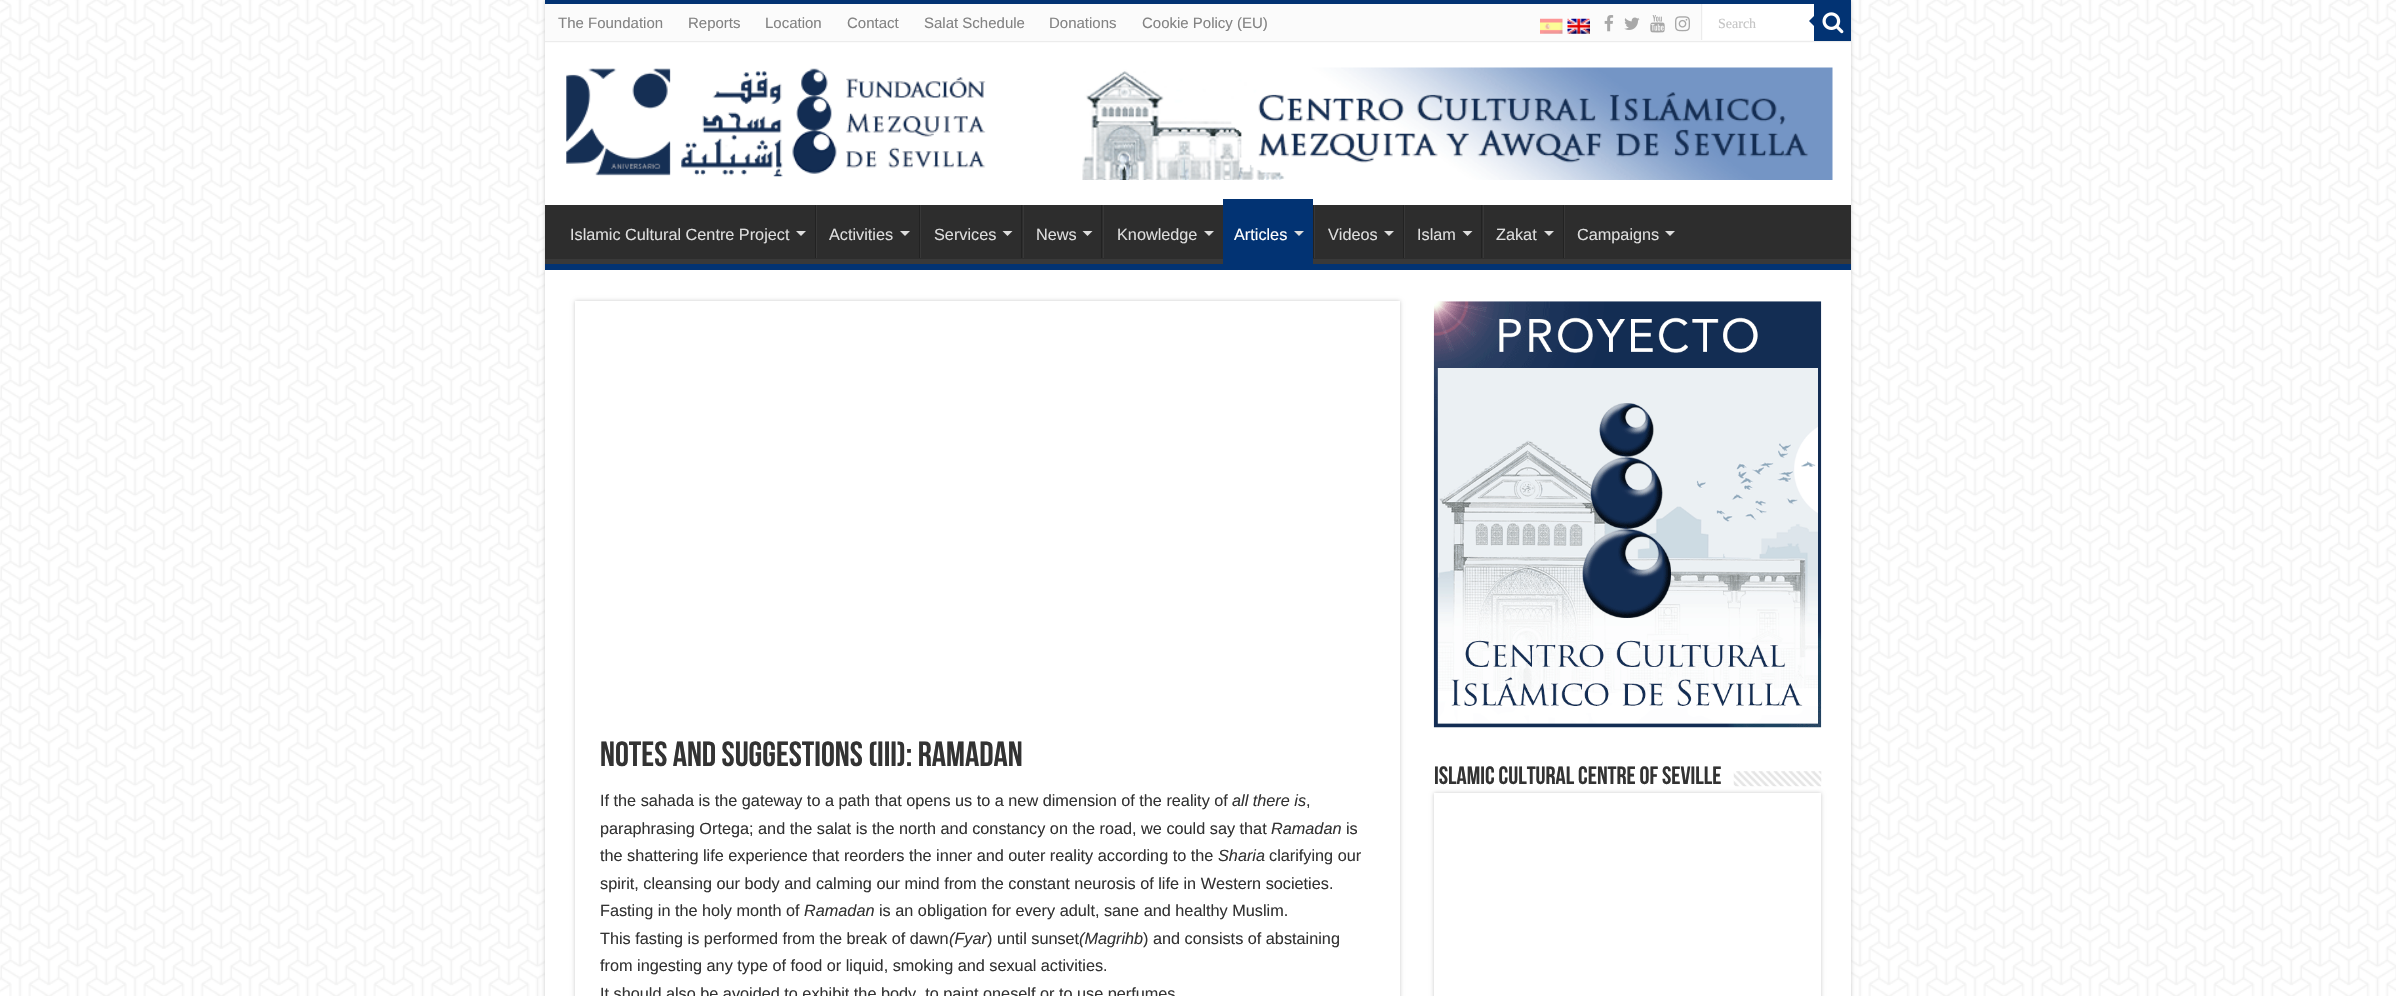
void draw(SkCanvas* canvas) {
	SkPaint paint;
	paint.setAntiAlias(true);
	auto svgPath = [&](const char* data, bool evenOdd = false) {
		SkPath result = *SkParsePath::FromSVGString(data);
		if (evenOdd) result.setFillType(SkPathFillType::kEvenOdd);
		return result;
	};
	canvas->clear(0xffffffff);
	canvas->drawImageRect(SkImages::DeferredFromEncodedData(SkData::MakeFromFileName("img1.png")), SkRect::MakeXYWH(0, 0, 2396, 996), SkSamplingOptions());
	paint.setColor(0xffcacaca);
	paint.setMaskFilter(SkMaskFilter::MakeBlur(kNormal_SkBlurStyle, 2));
	canvas->drawRect(SkRect::MakeXYWH(545, 0, 1306, 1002), paint);
	paint.setMaskFilter(nullptr);
	paint.setColor(0xffffffff);
	canvas->drawRect(SkRect::MakeXYWH(545, 43, 1306, 953), paint);
	paint.setColor(0xff023373);
	canvas->drawRect(SkRect::MakeXYWH(545, 0, 1306, 4), paint);
	paint.setColor(0xfffbfbfb);
	canvas->drawRect(SkRect::MakeXYWH(545, 4, 1306, 39), paint);
	paint.setColor(0xffececec);
	canvas->drawRect(SkRect::MakeXYWH(545, 41, 1306, 1), paint);
	SkFont f1(fontMgr->matchFamilyStyle("Liberation Sans", SkFontStyle::Normal()), 15);
	f1.setSubpixel(true);
	paint.setColor(0xff838383);
	canvas->drawString("The Foundation", 558, 28, f1, paint);
	canvas->drawString("Reports", 688, 28, f1, paint);
	canvas->drawString("Location", 765, 28, f1, paint);
	canvas->drawString("Contact", 847, 28, f1, paint);
	canvas->drawString("Salat Schedule", 924, 28, f1, paint);
	canvas->drawString("Donations", 1049, 28, f1, paint);
	canvas->drawString("Cookie Policy (EU)", 1142, 28, f1, paint);
	canvas->drawImageRect(SkImages::DeferredFromEncodedData(SkData::MakeFromFileName("img2.png")), SkRect::MakeXYWH(1540, 18, 23, 16), SkSamplingOptions());
	canvas->drawImageRect(SkImages::DeferredFromEncodedData(SkData::MakeFromFileName("img3.png")), SkRect::MakeXYWH(1567, 18, 23, 16), SkSamplingOptions());
	canvas->drawImageRect(SkImages::DeferredFromEncodedData(SkData::MakeFromFileName("img4.png")), SkRect::MakeXYWH(1604, 15, 10, 17), SkSamplingOptions());
	canvas->drawImageRect(SkImages::DeferredFromEncodedData(SkData::MakeFromFileName("img5.png")), SkRect::MakeXYWH(1624, 17, 16, 13), SkSamplingOptions());
	canvas->drawImageRect(SkImages::DeferredFromEncodedData(SkData::MakeFromFileName("img6.png")), SkRect::MakeXYWH(1650, 15, 15, 18), SkSamplingOptions());
	canvas->drawImageRect(SkImages::DeferredFromEncodedData(SkData::MakeFromFileName("img7.png")), SkRect::MakeXYWH(1675, 16, 15, 16), SkSamplingOptions());
	paint.setColor(0xffffffff);
	canvas->drawRect(SkRect::MakeXYWH(1703, 4, 111, 36), paint);
	paint.setColor(0xffececec);
	canvas->drawRect(SkRect::MakeXYWH(1701, 4, 1, 36), paint);
	SkFont f2(fontMgr->matchFamilyStyle("Liberation Serif", SkFontStyle::Normal()), 14);
	f2.setSubpixel(true);
	paint.setColor(0xffc5c5c5);
	canvas->drawString("Search", 1718, 28, f2, paint);
	paint.setColor(0xff023373);
	canvas->drawRect(SkRect::MakeXYWH(1814, 4, 37, 37), paint);
	canvas->drawImageRect(SkImages::DeferredFromEncodedData(SkData::MakeFromFileName("img8.png")), SkRect::MakeXYWH(1822, 12, 22, 22), SkSamplingOptions());
	canvas->drawPath(svgPath("M1814 16V26L1809 21Z"), paint);
	canvas->drawImageRect(SkImages::DeferredFromEncodedData(SkData::MakeFromFileName("img9.png")), SkRect::MakeXYWH(566, 68, 420, 109), SkSamplingOptions());
	canvas->drawImageRect(SkImages::DeferredFromEncodedData(SkData::MakeFromFileName("img10.png")), SkRect::MakeXYWH(1082, 67, 751, 113), SkSamplingOptions());
	paint.setColor(0xff2d2d2d);
	canvas->drawRect(SkRect::MakeXYWH(545, 205, 1306, 54), paint);
	canvas->save();
	canvas->clipRect(SkRect::MakeXYWH(545, 205, 1306, 59));
	paint.setColor(0xff393939);
	canvas->drawPath(svgPath("M421 81H1975V388H421ZM544 198H1850C1851 198 1851 198 1851 199V258C1851 258 1851 259 1850 259H544C543 259 542 258 542 258V199C542 198 543 198 544 198Z", true), paint);
	canvas->restore();
	paint.setColor(0xff023373);
	canvas->drawRect(SkRect::MakeXYWH(545, 264, 1306, 6), paint);
	SkFont f3(fontMgr->matchFamilyStyle("Liberation Sans", SkFontStyle::Normal()), 16.25);
	f3.setSubpixel(true);
	paint.setColor(0xffdddddd);
	canvas->drawString("Islamic Cultural Centre Project", 570, 240, f3, paint);
	canvas->drawPath(svgPath("M796 231H806L801 236Z"), paint);
	paint.setColor(0xff222222);
	canvas->drawRect(SkRect::MakeXYWH(815, 205, 1, 53), paint);
	paint.setColor(0xff383838);
	canvas->drawRect(SkRect::MakeXYWH(816, 205, 1, 53), paint);
	paint.setColor(0xffdddddd);
	canvas->drawString("Activities", 829, 240, f3, paint);
	canvas->drawPath(svgPath("M900 231H910L905 236Z"), paint);
	paint.setColor(0xff222222);
	canvas->drawRect(SkRect::MakeXYWH(919, 205, 1, 53), paint);
	paint.setColor(0xff383838);
	canvas->drawRect(SkRect::MakeXYWH(920, 205, 1, 53), paint);
	paint.setColor(0xffdddddd);
	canvas->drawString("Services", 934, 240, f3, paint);
	canvas->drawPath(svgPath("M1002.5 231H1012.5L1007.5 236Z"), paint);
	paint.setColor(0xff222222);
	canvas->drawRect(SkRect::MakeXYWH(1021, 205, 1, 53), paint);
	paint.setColor(0xff383838);
	canvas->drawRect(SkRect::MakeXYWH(1023, 205, 1, 53), paint);
	paint.setColor(0xffdddddd);
	canvas->drawString("News", 1036, 240, f3, paint);
	canvas->drawPath(svgPath("M1082.5 231H1092.5L1087.5 236Z"), paint);
	paint.setColor(0xff222222);
	canvas->drawRect(SkRect::MakeXYWH(1101, 205, 1, 53), paint);
	paint.setColor(0xff383838);
	canvas->drawRect(SkRect::MakeXYWH(1103, 205, 1, 53), paint);
	paint.setColor(0xffdddddd);
	canvas->drawString("Knowledge", 1117, 240, f3, paint);
	canvas->drawPath(svgPath("M1204 231H1214L1209 236Z"), paint);
	paint.setColor(0xff023373);
	canvas->drawRect(SkRect::MakeXYWH(1223, 199, 90, 65), paint);
	paint.setColor(0xffffffff);
	canvas->drawString("Articles", 1234, 240, f3, paint);
	paint.setColor(0xffdddddd);
	canvas->drawPath(svgPath("M1294 231H1304L1299 236Z"), paint);
	paint.setColor(0xff222222);
	canvas->drawRect(SkRect::MakeXYWH(1313, 205, 1, 53), paint);
	paint.setColor(0xff383838);
	canvas->drawRect(SkRect::MakeXYWH(1314, 205, 1, 53), paint);
	paint.setColor(0xffdddddd);
	canvas->drawString("Videos", 1328, 240, f3, paint);
	canvas->drawPath(svgPath("M1384 231H1394L1389 236Z"), paint);
	paint.setColor(0xff222222);
	canvas->drawRect(SkRect::MakeXYWH(1403, 205, 1, 53), paint);
	paint.setColor(0xff383838);
	canvas->drawRect(SkRect::MakeXYWH(1404, 205, 1, 53), paint);
	paint.setColor(0xffdddddd);
	canvas->drawString("Islam", 1417, 240, f3, paint);
	canvas->drawPath(svgPath("M1462.5 231H1472.5L1467.5 236Z"), paint);
	paint.setColor(0xff222222);
	canvas->drawRect(SkRect::MakeXYWH(1481, 205, 1, 53), paint);
	paint.setColor(0xff383838);
	canvas->drawRect(SkRect::MakeXYWH(1483, 205, 1, 53), paint);
	paint.setColor(0xffdddddd);
	canvas->drawString("Zakat", 1496, 240, f3, paint);
	canvas->drawPath(svgPath("M1544 231H1554L1549 236Z"), paint);
	paint.setColor(0xff222222);
	canvas->drawRect(SkRect::MakeXYWH(1563, 205, 1, 53), paint);
	paint.setColor(0xff383838);
	canvas->drawRect(SkRect::MakeXYWH(1564, 205, 1, 53), paint);
	paint.setColor(0xffdddddd);
	canvas->drawString("Campaigns", 1577, 240, f3, paint);
	canvas->drawPath(svgPath("M1665 231H1675L1670 236Z"), paint);
	paint.setColor(0xffcacaca);
	paint.setMaskFilter(SkMaskFilter::MakeBlur(kNormal_SkBlurStyle, 2));
	canvas->drawRect(SkRect::MakeXYWH(575, 301, 825, 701), paint);
	paint.setMaskFilter(nullptr);
	paint.setColor(0xffffffff);
	canvas->drawRect(SkRect::MakeXYWH(575, 301, 825, 695), paint);
	SkFont f4(fontMgr->matchFamilyStyle("Bebas Neue", SkFontStyle::Bold()), 35);
	f4.setSubpixel(true);
	paint.setColor(0xff333333);
	canvas->drawString("Notes and suggestions (III): Ramadan", 600, 766, f4, paint);
	canvas->drawString("If the sahada is the gateway to a path that opens us to a new dimension of the reality of", 600, 806, f3, paint);
	SkFont f5(fontMgr->matchFamilyStyle("Liberation Sans", SkFontStyle::Italic()), 16.25);
	f5.setSubpixel(true);
	canvas->drawString("all there is", 1232, 806, f5, paint);
	canvas->drawString(",", 1306, 806, f3, paint);
	canvas->drawString("paraphrasing Ortega; and the salat is the north and constancy on the road, we could say that", 600, 834, f3, paint);
	canvas->drawString("Ramadan", 1271, 834, f5, paint);
	canvas->drawString("is", 1346, 834, f3, paint);
	canvas->drawString("the shattering life experience that reorders the inner and outer reality according to the", 600, 861, f3, paint);
	canvas->drawString("Sharia", 1218, 861, f5, paint);
	canvas->drawString("clarifying our", 1269, 861, f3, paint);
	canvas->drawString("spirit, cleansing our body and calming our mind from the constant neurosis of life in Western societies.", 600, 889, f3, paint);
	canvas->drawString("Fasting in the holy month of", 600, 916, f3, paint);
	canvas->drawString("Ramadan", 804, 916, f5, paint);
	canvas->drawString("is an obligation for every adult, sane and healthy Muslim.", 879, 916, f3, paint);
	canvas->drawString("This fasting is performed from the break of dawn", 600, 944, f3, paint);
	canvas->drawString("(Fyar", 949, 944, f5, paint);
	canvas->drawString(") until sunset", 987, 944, f3, paint);
	canvas->drawString("(Magrihb", 1079, 944, f5, paint);
	canvas->drawString(") and consists of abstaining", 1143, 944, f3, paint);
	canvas->drawString("from ingesting any type of food or liquid, smoking and sexual activities.", 600, 971, f3, paint);
	canvas->drawString("It should also be avoided to exhibit the body, to paint oneself or to use perfumes", 600, 999, f3, paint);
	canvas->drawImageRect(SkImages::DeferredFromEncodedData(SkData::MakeFromFileName("img11.png")), SkRect::MakeXYWH(1433, 301, 389, 427), SkSamplingOptions());
	SkFont f6(fontMgr->matchFamilyStyle("Bebas Neue", SkFontStyle::Bold()), 25);
	f6.setSubpixel(true);
	canvas->drawString("Islamic Cultural Centre of Seville", 1434, 784, f6, paint);
	canvas->save();
	canvas->clipPath(svgPath("M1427 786H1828V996H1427ZM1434 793H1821V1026H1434Z", true), true);
	paint.setColor(0xffcacaca);
	paint.setMaskFilter(SkMaskFilter::MakeBlur(kNormal_SkBlurStyle, 2));
	canvas->drawRect(SkRect::MakeXYWH(1434, 793, 387, 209), paint);
	paint.setMaskFilter(nullptr);
	canvas->restore();
	canvas->drawImageRect(SkImages::DeferredFromEncodedData(SkData::MakeFromFileName("img12.png")), SkRect::MakeXYWH(1733, 771, 89, 16), SkSamplingOptions());
}
